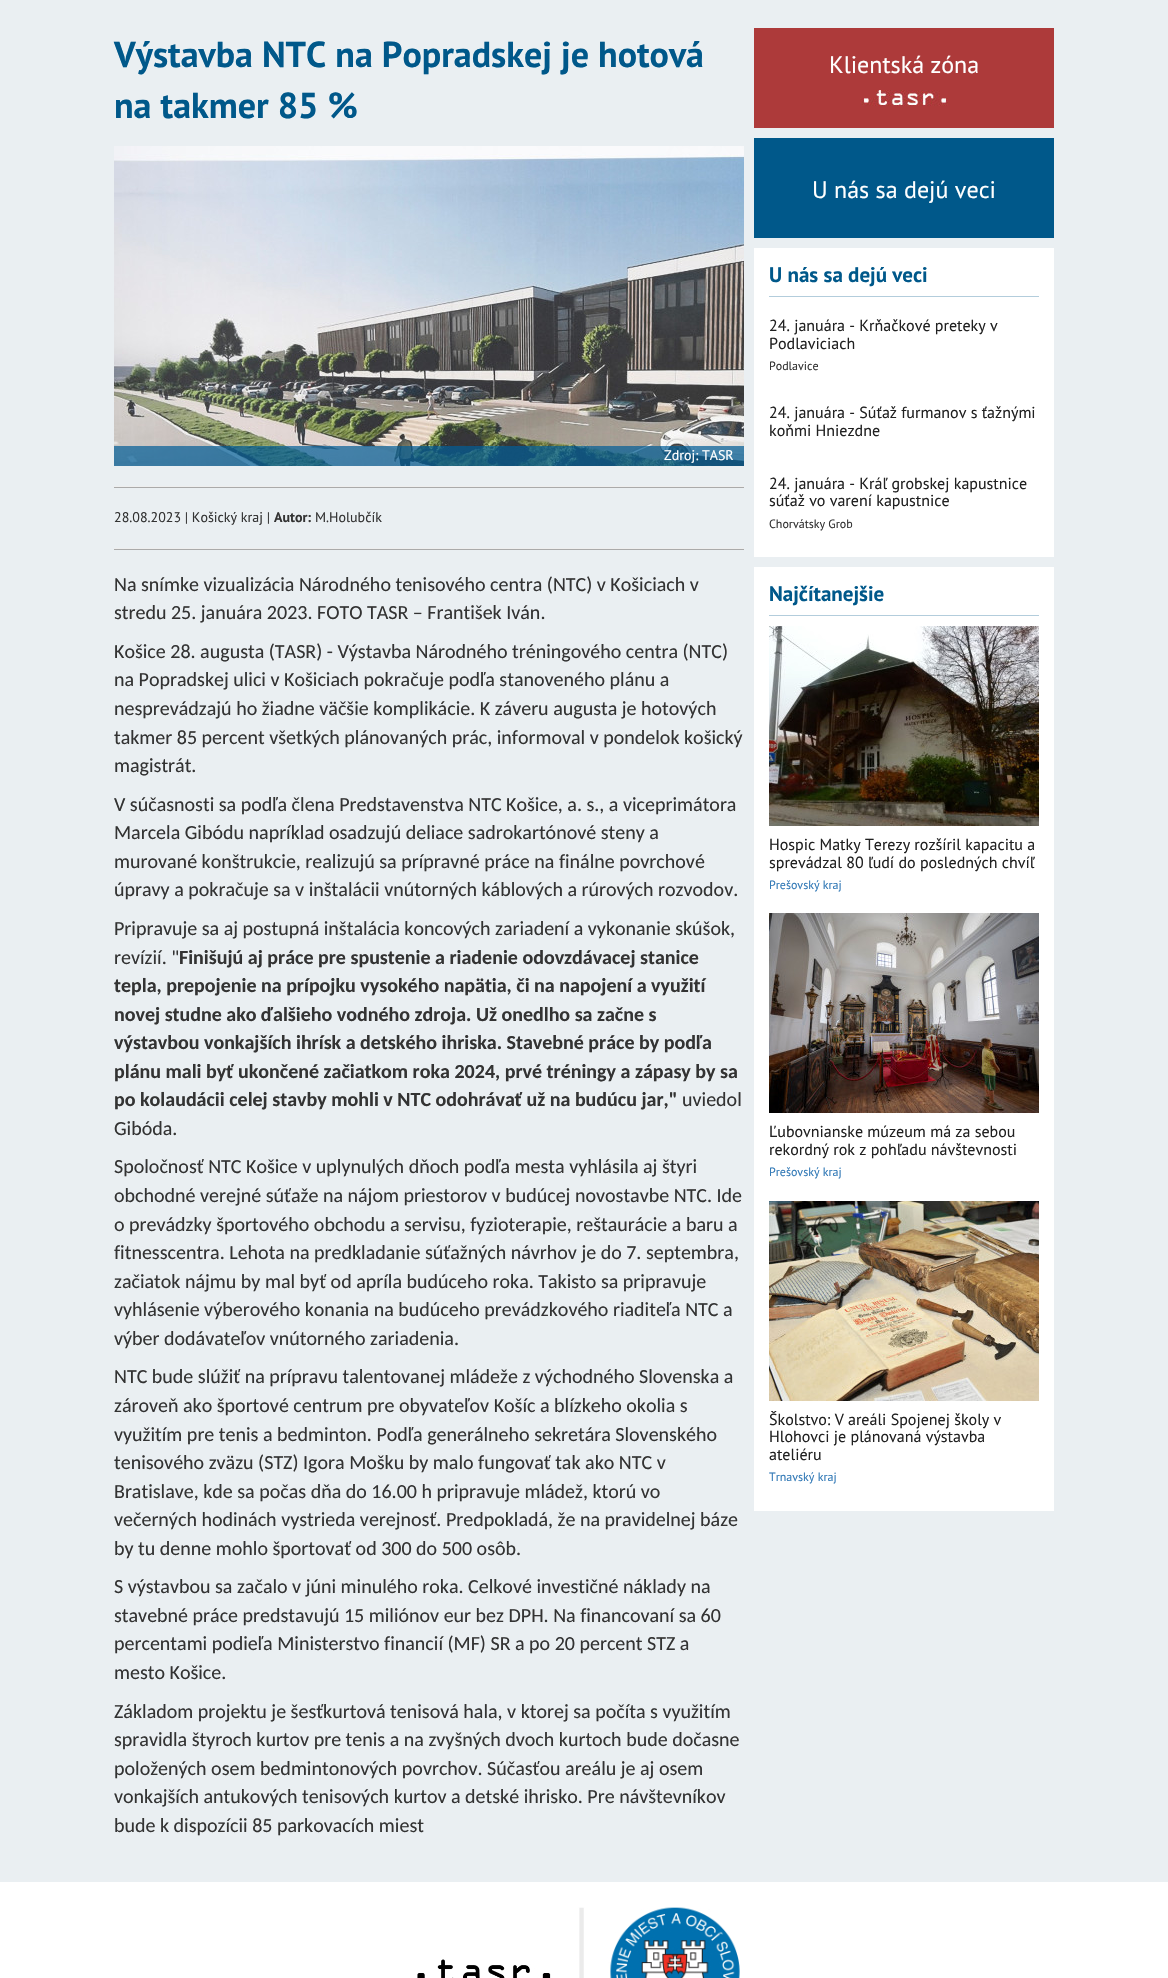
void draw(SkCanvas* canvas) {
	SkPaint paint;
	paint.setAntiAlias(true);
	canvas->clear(0xffeaeff2);
	SkFont f1(fontMgr->matchFamilyStyle("PT Sans", SkFontStyle::Bold()), 36);
	f1.setSubpixel(true);
	paint.setColor(0xff00588a);
	canvas->drawString("Výstavba NTC na Popradskej je hotová", 114, 67, f1, paint);
	canvas->drawString("na takmer 85 %", 114, 118, f1, paint);
	canvas->drawImageRect(SkImages::DeferredFromEncodedData(SkData::MakeFromFileName("img1.png")), SkRect::MakeXYWH(114, 146, 630, 320), SkSamplingOptions());
	paint.setColor(0xb3005c97);
	canvas->drawRect(SkRect::MakeXYWH(114, 446, 630, 20), paint);
	SkFont f2(fontMgr->matchFamilyStyle("PT Sans", SkFontStyle::Normal()), 14);
	f2.setSubpixel(true);
	paint.setColor(0xffffffff);
	canvas->drawString("Zdroj: TASR", 664, 460, f2, paint);
	paint.setColor(0xffeeeeee);
	canvas->drawRect(SkRect::MakeXYWH(114, 486, 630, 1), paint);
	paint.setColor(0xffaaaaaa);
	canvas->drawRect(SkRect::MakeXYWH(114, 487, 630, 1), paint);
	paint.setColor(0xff333333);
	canvas->drawString("28.08.2023 | Košický kraj |", 114, 522, f2, paint);
	SkFont f3(fontMgr->matchFamilyStyle("PT Sans", SkFontStyle::Bold()), 14);
	f3.setSubpixel(true);
	canvas->drawString("Autor:", 274, 522, f3, paint);
	canvas->drawString("M.Holubčík", 315, 522, f2, paint);
	paint.setColor(0xffeeeeee);
	canvas->drawRect(SkRect::MakeXYWH(114, 548, 630, 1), paint);
	paint.setColor(0xffaaaaaa);
	canvas->drawRect(SkRect::MakeXYWH(114, 549, 630, 1), paint);
	SkFont f4(fontMgr->matchFamilyStyle("Carlito", SkFontStyle::Normal()), 20);
	f4.setSubpixel(true);
	paint.setColor(0xff333333);
	canvas->drawString("Na snímke vizualizácia Národného tenisového centra (NTC) v Košiciach v", 114, 591, f4, paint);
	canvas->drawString("stredu 25. januára 2023. FOTO TASR – František Iván.", 114, 619, f4, paint);
	canvas->drawString("Košice 28. augusta (TASR) - Výstavba Národného tréningového centra (NTC)", 114, 658, f4, paint);
	canvas->drawString("na Popradskej ulici v Košiciach pokračuje podľa stanoveného plánu a", 114, 686, f4, paint);
	canvas->drawString("nesprevádzajú ho žiadne väčšie komplikácie. K záveru augusta je hotových", 114, 715, f4, paint);
	canvas->drawString("takmer 85 percent všetkých plánovaných prác, informoval v pondelok košický", 114, 744, f4, paint);
	canvas->drawString("magistrát.", 114, 772, f4, paint);
	canvas->drawString("V súčasnosti sa podľa člena Predstavenstva NTC Košice, a. s., a viceprimátora", 114, 811, f4, paint);
	canvas->drawString("Marcela Gibódu napríklad osadzujú deliace sadrokartónové steny a", 114, 839, f4, paint);
	canvas->drawString("murované konštrukcie, realizujú sa prípravné práce na finálne povrchové", 114, 868, f4, paint);
	canvas->drawString("úpravy a pokračuje sa v inštalácii vnútorných káblových a rúrových rozvodov.", 114, 896, f4, paint);
	canvas->drawString("Pripravuje sa aj postupná inštalácia koncových zariadení a vykonanie skúšok,", 114, 935, f4, paint);
	canvas->drawString("revízií. \"", 114, 964, f4, paint);
	SkFont f5(fontMgr->matchFamilyStyle("Carlito", SkFontStyle::Bold()), 20);
	f5.setSubpixel(true);
	canvas->drawString("Finišujú aj práce pre spustenie a riadenie odovzdávacej stanice", 179, 964, f5, paint);
	canvas->drawString("tepla, prepojenie na prípojku vysokého napätia, či na napojení a využití", 114, 992, f5, paint);
	canvas->drawString("novej studne ako ďalšieho vodného zdroja. Už onedlho sa začne s", 114, 1021, f5, paint);
	canvas->drawString("výstavbou vonkajších ihrísk a detského ihriska. Stavebné práce by podľa", 114, 1049, f5, paint);
	canvas->drawString("plánu mali byť ukončené začiatkom roka 2024, prvé tréningy a zápasy by sa", 114, 1078, f5, paint);
	canvas->drawString("po kolaudácii celej stavby mohli v NTC odohrávať už na budúcu jar,\"", 114, 1106, f5, paint);
	canvas->drawString("uviedol", 682, 1106, f4, paint);
	canvas->drawString("Gibóda.", 114, 1135, f4, paint);
	canvas->drawString("Spoločnosť NTC Košice v uplynulých dňoch podľa mesta vyhlásila aj štyri", 114, 1173, f4, paint);
	canvas->drawString("obchodné verejné súťaže na nájom priestorov v budúcej novostavbe NTC. Ide", 114, 1202, f4, paint);
	canvas->drawString("o prevádzky športového obchodu a servisu, fyzioterapie, reštaurácie a baru a", 114, 1231, f4, paint);
	canvas->drawString("fitnesscentra. Lehota na predkladanie súťažných návrhov je do 7. septembra,", 114, 1259, f4, paint);
	canvas->drawString("začiatok nájmu by mal byť od apríla budúceho roka. Takisto sa pripravuje", 114, 1288, f4, paint);
	canvas->drawString("vyhlásenie výberového konania na budúceho prevádzkového riaditeľa NTC a", 114, 1316, f4, paint);
	canvas->drawString("výber dodávateľov vnútorného zariadenia.", 114, 1345, f4, paint);
	canvas->drawString("NTC bude slúžiť na prípravu talentovanej mládeže z východného Slovenska a", 114, 1383, f4, paint);
	canvas->drawString("zároveň ako športové centrum pre obyvateľov Košíc a blízkeho okolia s", 114, 1412, f4, paint);
	canvas->drawString("využitím pre tenis a bedminton. Podľa generálneho sekretára Slovenského", 114, 1441, f4, paint);
	canvas->drawString("tenisového zväzu (STZ) Igora Mošku by malo fungovať tak ako NTC v", 114, 1469, f4, paint);
	canvas->drawString("Bratislave, kde sa počas dňa do 16.00 h pripravuje mládež, ktorú vo", 114, 1498, f4, paint);
	canvas->drawString("večerných hodinách vystrieda verejnosť. Predpokladá, že na pravidelnej báze", 114, 1526, f4, paint);
	canvas->drawString("by tu denne mohlo športovať od 300 do 500 osôb.", 114, 1555, f4, paint);
	canvas->drawString("S výstavbou sa začalo v júni minulého roka. Celkové investičné náklady na", 114, 1593, f4, paint);
	canvas->drawString("stavebné práce predstavujú 15 miliónov eur bez DPH. Na financovaní sa 60", 114, 1622, f4, paint);
	canvas->drawString("percentami podieľa Ministerstvo financií (MF) SR a po 20 percent STZ a", 114, 1650, f4, paint);
	canvas->drawString("mesto Košice.", 114, 1679, f4, paint);
	canvas->drawString("Základom projektu je šesťkurtová tenisová hala, v ktorej sa počíta s využitím", 114, 1718, f4, paint);
	canvas->drawString("spravidla štyroch kurtov pre tenis a na zvyšných dvoch kurtoch bude dočasne", 114, 1746, f4, paint);
	canvas->drawString("položených osem bedmintonových povrchov. Súčasťou areálu je aj osem", 114, 1775, f4, paint);
	canvas->drawString("vonkajších antukových tenisových kurtov a detské ihrisko. Pre návštevníkov", 114, 1803, f4, paint);
	canvas->drawString("bude k dispozícii 85 parkovacích miest", 114, 1832, f4, paint);
	paint.setColor(0xffad3a3a);
	canvas->drawRect(SkRect::MakeXYWH(754, 28, 300, 100), paint);
	SkFont f6(fontMgr->matchFamilyStyle("PT Sans", SkFontStyle::Normal()), 24);
	f6.setSubpixel(true);
	paint.setColor(0xffffffff);
	canvas->drawString("Klientská zóna", 829, 73, f6, paint);
	canvas->drawImageRect(SkImages::DeferredFromEncodedData(SkData::MakeFromFileName("img2.png")), SkRect::MakeXYWH(860, 90, 88, 16), SkSamplingOptions());
	paint.setColor(0xff00588a);
	canvas->drawRect(SkRect::MakeXYWH(754, 138, 300, 100), paint);
	paint.setColor(0xffffffff);
	canvas->drawString("U nás sa dejú veci", 812, 198, f6, paint);
	canvas->drawRect(SkRect::MakeXYWH(754, 248, 300, 309), paint);
	paint.setColor(0xffb3cddc);
	canvas->drawRect(SkRect::MakeXYWH(769, 296, 270, 1), paint);
	SkFont f7(fontMgr->matchFamilyStyle("PT Sans", SkFontStyle::Bold()), 21);
	f7.setSubpixel(true);
	paint.setColor(0xff00588a);
	canvas->drawString("U nás sa dejú veci", 769, 282, f7, paint);
	SkFont f8(fontMgr->matchFamilyStyle("PT Sans", SkFontStyle::Normal()), 16);
	f8.setSubpixel(true);
	paint.setColor(0xff212121);
	canvas->drawString("24. januára - Krňačkové preteky v", 769, 331, f8, paint);
	canvas->drawString("Podlaviciach", 769, 349, f8, paint);
	SkFont f9(fontMgr->matchFamilyStyle("PT Sans", SkFontStyle::Normal()), 12);
	f9.setSubpixel(true);
	paint.setColor(0xff333333);
	canvas->drawString("Podlavice", 769, 370, f9, paint);
	paint.setColor(0xff212121);
	canvas->drawString("24. januára - Súťaž furmanov s ťažnými", 769, 418, f8, paint);
	canvas->drawString("koňmi Hniezdne", 769, 436, f8, paint);
	canvas->drawString("24. januára - Kráľ grobskej kapustnice", 769, 489, f8, paint);
	canvas->drawString("súťaž vo varení kapustnice", 769, 506, f8, paint);
	paint.setColor(0xff333333);
	canvas->drawString("Chorvátsky Grob", 769, 528, f9, paint);
	paint.setColor(0xffffffff);
	canvas->drawRect(SkRect::MakeXYWH(754, 567, 300, 944), paint);
	paint.setColor(0xffb3cddc);
	canvas->drawRect(SkRect::MakeXYWH(769, 615, 270, 1), paint);
	paint.setColor(0xff00588a);
	canvas->drawString("Najčítanejšie", 769, 601, f7, paint);
	canvas->drawImageRect(SkImages::DeferredFromEncodedData(SkData::MakeFromFileName("img3.png")), SkRect::MakeXYWH(769, 626, 270, 200), SkSamplingOptions());
	paint.setColor(0xff212121);
	canvas->drawString("Hospic Matky Terezy rozšíril kapacitu a", 769, 850, f8, paint);
	canvas->drawString("sprevádzal 80 ľudí do posledných chvíľ", 769, 868, f8, paint);
	paint.setColor(0xff337ab7);
	canvas->drawString("Prešovský kraj", 769, 889, f9, paint);
	canvas->drawImageRect(SkImages::DeferredFromEncodedData(SkData::MakeFromFileName("img4.png")), SkRect::MakeXYWH(769, 913, 270, 200), SkSamplingOptions());
	paint.setColor(0xff212121);
	canvas->drawString("Ľubovnianske múzeum má za sebou", 769, 1137, f8, paint);
	canvas->drawString("rekordný rok z pohľadu návštevnosti", 769, 1155, f8, paint);
	paint.setColor(0xff337ab7);
	canvas->drawString("Prešovský kraj", 769, 1176, f9, paint);
	canvas->drawImageRect(SkImages::DeferredFromEncodedData(SkData::MakeFromFileName("img5.png")), SkRect::MakeXYWH(769, 1201, 270, 200), SkSamplingOptions());
	paint.setColor(0xff212121);
	canvas->drawString("Školstvo: V areáli Spojenej školy v", 769, 1425, f8, paint);
	canvas->drawString("Hlohovci je plánovaná výstavba", 769, 1442, f8, paint);
	canvas->drawString("ateliéru", 769, 1460, f8, paint);
	paint.setColor(0xff337ab7);
	canvas->drawString("Trnavský kraj", 769, 1481, f9, paint);
	paint.setColor(0xffffffff);
	canvas->drawRect(SkRect::MakeXYWH(0, 1882, 1168, 96), paint);
	canvas->drawImageRect(SkImages::DeferredFromEncodedData(SkData::MakeFromFileName("img6.png")), SkRect::MakeXYWH(417, 1907, 323, 71), SkSamplingOptions());
}
